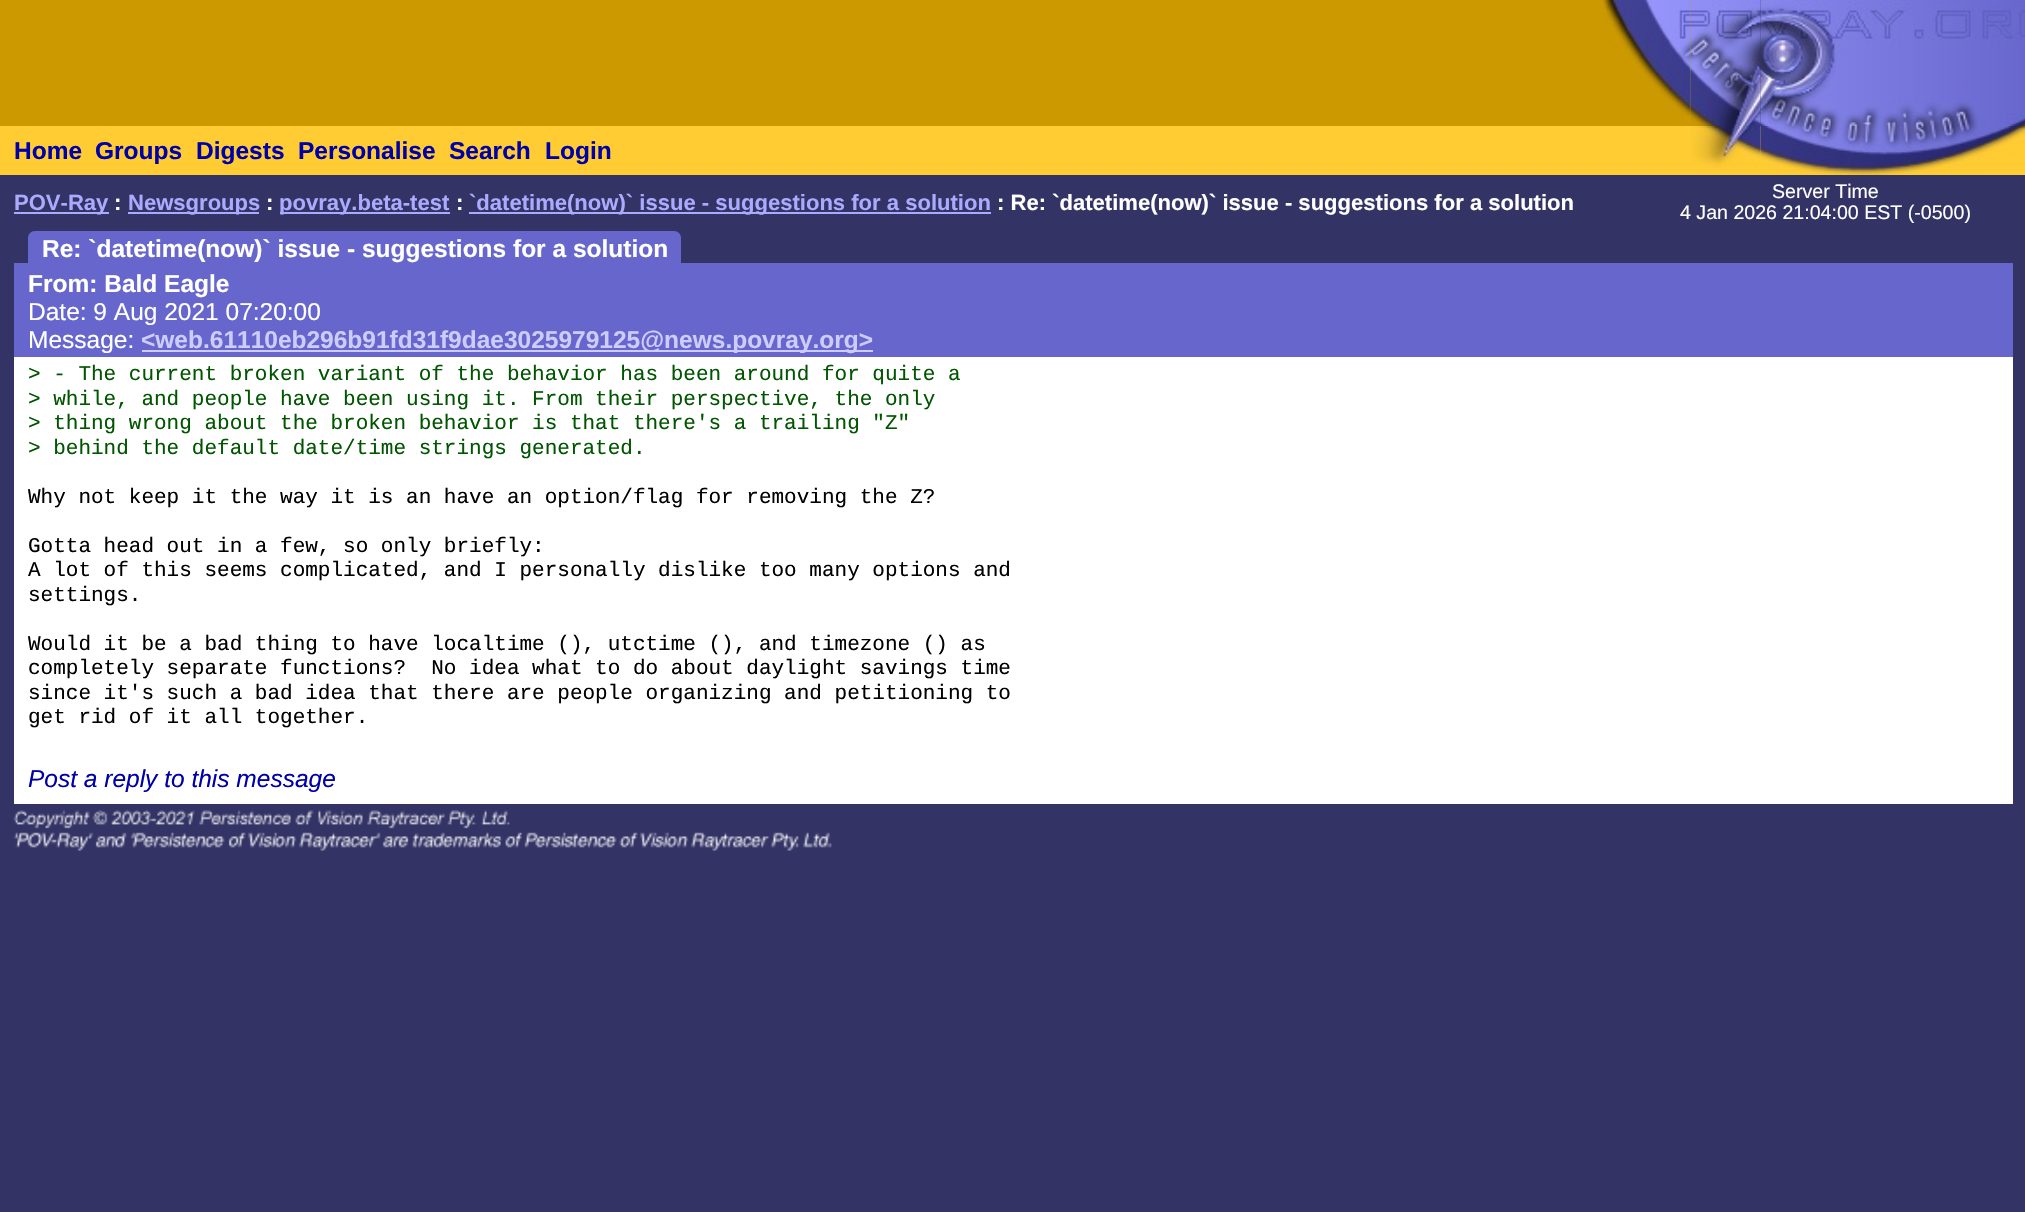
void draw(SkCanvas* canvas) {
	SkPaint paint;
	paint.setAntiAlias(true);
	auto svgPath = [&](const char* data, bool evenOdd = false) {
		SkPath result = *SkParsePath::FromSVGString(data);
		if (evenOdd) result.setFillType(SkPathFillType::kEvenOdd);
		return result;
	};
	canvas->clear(0xff333366);
	paint.setColor(0xffcc9900);
	canvas->drawRect(SkRect::MakeXYWH(0, 0, 1691, 126), paint);
	canvas->drawImageRect(SkImages::DeferredFromEncodedData(SkData::MakeFromFileName("img1.png")), SkRect::MakeXYWH(1599, 0, 92, 117), SkSamplingOptions());
	canvas->drawImageRect(SkImages::DeferredFromEncodedData(SkData::MakeFromFileName("img2.png")), SkRect::MakeXYWH(1690, 0, 71, 126), SkSamplingOptions());
	canvas->drawImageRect(SkImages::DeferredFromEncodedData(SkData::MakeFromFileName("img3.png")), SkRect::MakeXYWH(1760, 0, 265, 126), SkSamplingOptions());
	paint.setColor(0xffffcc33);
	canvas->drawRect(SkRect::MakeXYWH(0, 126, 1761, 49), paint);
	SkFont f1(fontMgr->matchFamilyStyle("Liberation Sans", SkFontStyle::Bold()), 24.5);
	f1.setSubpixel(true);
	paint.setColor(0xff0000aa);
	canvas->drawString("Home", 14, 159, f1, paint);
	canvas->drawString("Groups", 95, 159, f1, paint);
	canvas->drawString("Digests", 196, 159, f1, paint);
	canvas->drawString("Personalise", 298, 159, f1, paint);
	canvas->drawString("Search", 449, 159, f1, paint);
	canvas->drawString("Login", 545, 159, f1, paint);
	canvas->drawImageRect(SkImages::DeferredFromEncodedData(SkData::MakeFromFileName("img4.png")), SkRect::MakeXYWH(1691, 126, 70, 45), SkSamplingOptions());
	canvas->drawImageRect(SkImages::DeferredFromEncodedData(SkData::MakeFromFileName("img5.png")), SkRect::MakeXYWH(1760, 126, 265, 49), SkSamplingOptions());
	paint.setColor(0xffaaaaff);
	canvas->drawRect(SkRect::MakeXYWH(14, 212, 95, 2), paint);
	SkFont f2(fontMgr->matchFamilyStyle("Liberation Sans", SkFontStyle::Bold()), 22.05);
	f2.setSubpixel(true);
	canvas->drawString("POV-Ray", 14, 210, f2, paint);
	paint.setColor(0xffffffff);
	canvas->drawString(":", 114, 210, f2, paint);
	paint.setColor(0xffaaaaff);
	canvas->drawRect(SkRect::MakeXYWH(128, 212, 131, 2), paint);
	canvas->drawString("Newsgroups", 128, 210, f2, paint);
	paint.setColor(0xffffffff);
	canvas->drawString(":", 266, 210, f2, paint);
	paint.setColor(0xffaaaaff);
	canvas->drawRect(SkRect::MakeXYWH(280, 212, 170, 2), paint);
	canvas->drawString("povray.beta-test", 279, 210, f2, paint);
	paint.setColor(0xffffffff);
	canvas->drawString(":", 456, 210, f2, paint);
	paint.setColor(0xffaaaaff);
	canvas->drawRect(SkRect::MakeXYWH(469, 212, 522, 2), paint);
	canvas->drawString("`datetime(now)` issue - suggestions for a solution", 469, 210, f2, paint);
	paint.setColor(0xffffffff);
	canvas->drawString(": Re: `datetime(now)` issue - suggestions for a solution", 997, 210, f2, paint);
	SkFont f3(fontMgr->matchFamilyStyle("Liberation Sans", SkFontStyle::Normal()), 19.6);
	f3.setSubpixel(true);
	canvas->drawString("Server Time", 1772, 198, f3, paint);
	canvas->drawString("4 Jan 2026 21:04:00 EST (-0500)", 1680, 219, f3, paint);
	paint.setColor(0xff6666cc);
	canvas->drawPath(svgPath("M35 231H674C678 231 681 234 681 238V263H28V238C28 234 31 231 35 231Z"), paint);
	paint.setColor(0xffffffff);
	canvas->drawString("Re: `datetime(now)` issue - suggestions for a solution", 42, 257, f1, paint);
	paint.setColor(0xff6666cc);
	canvas->drawRect(SkRect::MakeXYWH(14, 263, 1999, 7), paint);
	canvas->drawRect(SkRect::MakeXYWH(14, 270, 1999, 87), paint);
	paint.setColor(0xffffffff);
	canvas->drawString("From: Bald Eagle", 28, 292, f1, paint);
	SkFont f4(fontMgr->matchFamilyStyle("Liberation Sans", SkFontStyle::Normal()), 24.5);
	f4.setSubpixel(true);
	canvas->drawString("Date: 9 Aug 2021 07:20:00", 28, 320, f4, paint);
	canvas->drawString("Message:", 28, 348, f4, paint);
	paint.setColor(0xffccccff);
	canvas->drawRect(SkRect::MakeXYWH(142, 350, 731, 2), paint);
	canvas->drawString("<web.61110eb296b91fd31f9dae3025979125@news.povray.org>", 141, 348, f1, paint);
	paint.setColor(0xffffffff);
	canvas->drawRect(SkRect::MakeXYWH(14, 357, 1999, 4), paint);
	canvas->drawRect(SkRect::MakeXYWH(14, 361, 1999, 443), paint);
	SkFont f5(fontMgr->matchFamilyStyle("Liberation Mono", SkFontStyle::Normal()), 21);
	f5.setSubpixel(true);
	paint.setColor(0xff005500);
	canvas->drawString("> - The current broken variant of the behavior has been around for quite a", 28, 380, f5, paint);
	canvas->drawString("> while, and people have been using it. From their perspective, the only", 28, 405, f5, paint);
	canvas->drawString("> thing wrong about the broken behavior is that there's a trailing \"Z\"", 28, 429, f5, paint);
	canvas->drawString("> behind the default date/time strings generated.", 28, 454, f5, paint);
	paint.setColor(0xff000000);
	canvas->drawString("Why not keep it the way it is an have an option/flag for removing the Z?", 28, 503, f5, paint);
	canvas->drawString("Gotta head out in a few, so only briefly:", 28, 552, f5, paint);
	canvas->drawString("A lot of this seems complicated, and I personally dislike too many options and", 28, 576, f5, paint);
	canvas->drawString("settings.", 28, 601, f5, paint);
	canvas->drawString("Would it be a bad thing to have localtime (), utctime (), and timezone () as", 28, 650, f5, paint);
	canvas->drawString("completely separate functions?  No idea what to do about daylight savings time", 28, 674, f5, paint);
	canvas->drawString("since it's such a bad idea that there are people organizing and petitioning to", 28, 699, f5, paint);
	canvas->drawString("get rid of it all together.", 28, 723, f5, paint);
	SkFont f6(fontMgr->matchFamilyStyle("Liberation Sans", SkFontStyle::Italic()), 24.5);
	f6.setSubpixel(true);
	paint.setColor(0xff0000aa);
	canvas->drawString("Post a reply to this message", 28, 787, f6, paint);
	canvas->drawImageRect(SkImages::DeferredFromEncodedData(SkData::MakeFromFileName("img6.png")), SkRect::MakeXYWH(13, 810, 819, 41), SkSamplingOptions());
}
